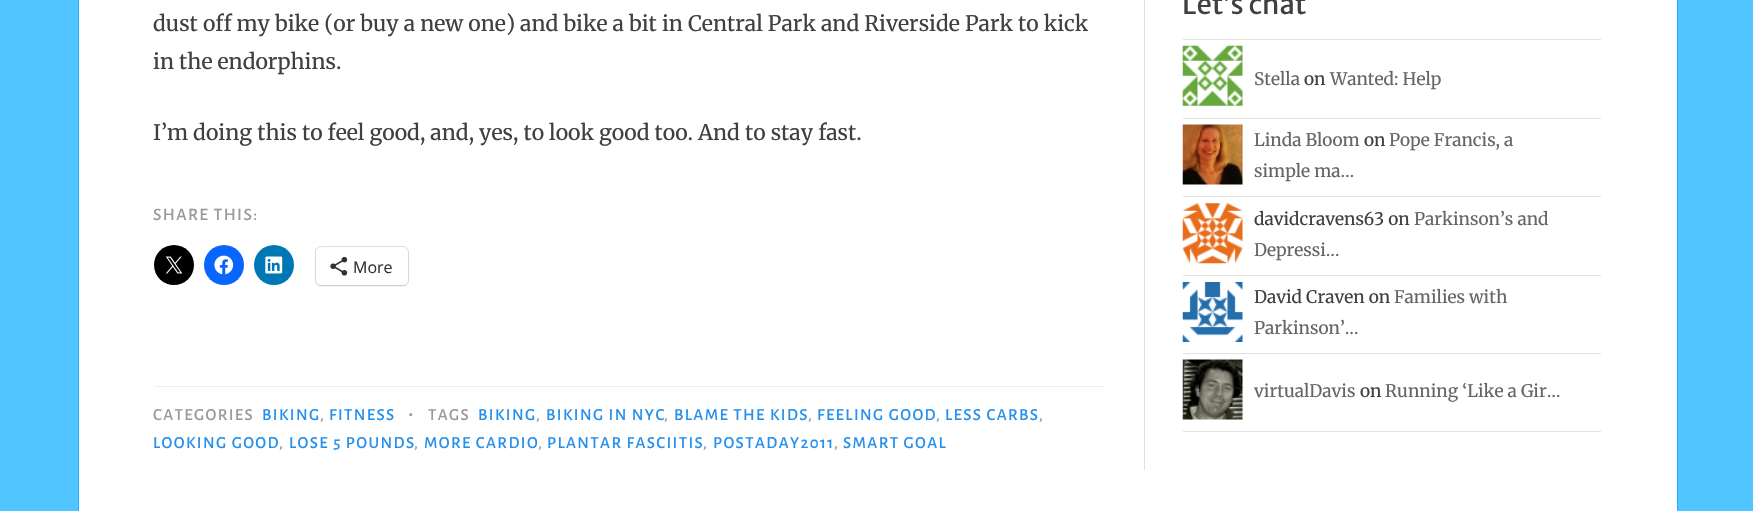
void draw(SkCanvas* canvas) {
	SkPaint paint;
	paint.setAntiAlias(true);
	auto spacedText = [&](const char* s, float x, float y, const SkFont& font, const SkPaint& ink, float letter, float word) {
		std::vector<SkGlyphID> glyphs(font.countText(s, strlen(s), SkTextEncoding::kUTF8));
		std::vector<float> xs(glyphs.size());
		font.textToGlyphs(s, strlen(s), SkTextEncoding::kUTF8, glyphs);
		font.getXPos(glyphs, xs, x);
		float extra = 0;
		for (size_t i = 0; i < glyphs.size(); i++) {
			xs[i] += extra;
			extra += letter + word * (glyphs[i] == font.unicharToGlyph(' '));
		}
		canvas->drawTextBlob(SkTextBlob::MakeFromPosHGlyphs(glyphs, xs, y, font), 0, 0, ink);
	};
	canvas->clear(0xff51c5ff);
	paint.setColor(0xffffffff);
	canvas->drawRect(SkRect::MakeXYWH(78.5, -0.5, 1599, 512), paint);
	paint.setStroke(true);
	paint.setStrokeWidth(1);
	paint.setColor(0xff1eb4ff);
	canvas->drawRect(SkRect::MakeXYWH(78.5, -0.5, 1599, 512), paint);
	SkFont f1(fontMgr->matchFamilyStyle("Merriweather", SkFontStyle::Normal()), 21.25);
	f1.setSubpixel(true);
	paint.setStroke(false);
	paint.setColor(0xff404040);
	canvas->drawString("dust off my bike (or buy a new one) and bike a bit in Central Park and Riverside Park to kick", 153, 31, f1, paint);
	canvas->drawString("in the endorphins.", 153, 69, f1, paint);
	canvas->drawString("I’m doing this to feel good, and, yes, to look good too. And to stay fast.", 153, 140, f1, paint);
	SkFont f2(fontMgr->matchFamilyStyle("Alegreya Sans", SkFontStyle(500, SkFontStyle::kNormal_Width, SkFontStyle::kUpright_Slant)), 17.5);
	f2.setSubpixel(true);
	paint.setColor(0xff999999);
	spacedText("SHARE THIS:", 153, 220, f2, paint, 1.4, 0);
	paint.setColor(0xff000000);
	canvas->drawCircle(174, 265, 20, paint);
	canvas->drawImageRect(SkImages::DeferredFromEncodedData(SkData::MakeFromFileName("img1.png")), SkRect::MakeXYWH(165, 256, 18, 18), SkSamplingOptions());
	paint.setColor(0xff0866ff);
	canvas->drawCircle(224, 265, 20, paint);
	canvas->drawImageRect(SkImages::DeferredFromEncodedData(SkData::MakeFromFileName("img2.png")), SkRect::MakeXYWH(214, 255, 20, 20), SkSamplingOptions());
	paint.setColor(0xff0077b5);
	canvas->drawCircle(274, 265, 20, paint);
	canvas->drawImageRect(SkImages::DeferredFromEncodedData(SkData::MakeFromFileName("img3.png")), SkRect::MakeXYWH(265, 256, 18, 18), SkSamplingOptions());
	paint.setStroke(true);
	paint.setColor(0xffe0e0e0);
	canvas->drawRoundRect(SkRect::MakeXYWH(315.5, 246.5, 93, 39), 5.5, 5.5, paint);
	paint.setStroke(false);
	paint.setColor(0x1f000000);
	paint.setMaskFilter(SkMaskFilter::MakeBlur(kNormal_SkBlurStyle, 1));
	canvas->drawRoundRect(SkRect::MakeXYWH(316, 249, 92, 37), 5, 5, paint);
	paint.setMaskFilter(nullptr);
	paint.setColor(0xffffffff);
	canvas->drawRoundRect(SkRect::MakeXYWH(316, 248, 92, 37), 5, 5, paint);
	canvas->drawImageRect(SkImages::DeferredFromEncodedData(SkData::MakeFromFileName("img4.png")), SkRect::MakeXYWH(330, 256, 18, 20), SkSamplingOptions());
	SkFont f3(fontMgr->matchFamilyStyle("Open Sans", SkFontStyle::Normal()), 16);
	f3.setSubpixel(true);
	paint.setColor(0xff2c3338);
	canvas->drawString("More", 353, 273, f3, paint);
	paint.setColor(0xffefefef);
	canvas->drawRect(SkRect::MakeXYWH(154, 386, 951, 1), paint);
	SkFont f4(fontMgr->matchFamilyStyle("Alegreya Sans", SkFontStyle(500, SkFontStyle::kNormal_Width, SkFontStyle::kUpright_Slant)), 16.9);
	f4.setSubpixel(true);
	paint.setColor(0xff999999);
	spacedText("CATEGORIES", 153, 420, f4, paint, 1.4, 0);
	paint.setColor(0xff2590ec);
	spacedText("BIKING", 262, 420, f4, paint, 1.4, 0);
	spacedText("FITNESS", 329, 420, f4, paint, 1.4, 0);
	SkFont f5(fontMgr->matchFamilyStyle("Alegreya Sans", SkFontStyle(500, SkFontStyle::kNormal_Width, SkFontStyle::kUpright_Slant)), 22);
	f5.setSubpixel(true);
	paint.setColor(0xff999999);
	spacedText("•", 408, 420, f5, paint, 2, 0);
	spacedText("TAGS", 428, 420, f4, paint, 1.4, 0);
	paint.setColor(0xff2590ec);
	spacedText("BIKING", 478, 420, f4, paint, 1.4, 0);
	spacedText("BIKING IN NYC", 546, 420, f4, paint, 1.4, 0);
	spacedText("BLAME THE KIDS", 674, 420, f4, paint, 1.4, 0);
	spacedText("FEELING GOOD", 817, 420, f4, paint, 1.4, 0);
	spacedText("LESS CARBS", 945, 420, f4, paint, 1.4, 0);
	paint.setColor(0xff999999);
	spacedText(",", 320, 420, f4, paint, 1.4, 0);
	spacedText(",", 536, 420, f4, paint, 1.4, 0);
	spacedText(",", 664, 420, f4, paint, 1.4, 0);
	spacedText(",", 808, 420, f4, paint, 1.4, 0);
	spacedText(",", 936, 420, f4, paint, 1.4, 0);
	spacedText(",", 1039, 420, f4, paint, 1.4, 0);
	paint.setColor(0xff2590ec);
	spacedText("LOOKING GOOD", 153, 448, f4, paint, 1.4, 0);
	paint.setColor(0xff999999);
	spacedText(",", 279, 448, f4, paint, 1.4, 0);
	paint.setColor(0xff2590ec);
	spacedText("LOSE 5 POUNDS", 289, 448, f4, paint, 1.4, 0);
	paint.setColor(0xff999999);
	spacedText(",", 414, 448, f4, paint, 1.4, 0);
	paint.setColor(0xff2590ec);
	spacedText("MORE CARDIO", 424, 448, f4, paint, 1.4, 0);
	paint.setColor(0xff999999);
	spacedText(",", 538, 448, f4, paint, 1.4, 0);
	paint.setColor(0xff2590ec);
	spacedText("PLANTAR FASCIITIS", 547, 448, f4, paint, 1.4, 0);
	paint.setColor(0xff999999);
	spacedText(",", 703, 448, f4, paint, 1.4, 0);
	paint.setColor(0xff2590ec);
	spacedText("POSTADAY2011", 713, 448, f4, paint, 1.4, 0);
	paint.setColor(0xff999999);
	spacedText(",", 834, 448, f4, paint, 1.4, 0);
	paint.setColor(0xff2590ec);
	spacedText("SMART GOAL", 843, 448, f4, paint, 1.4, 0);
	paint.setColor(0xffe1e1e1);
	canvas->drawRect(SkRect::MakeXYWH(1144, 0, 1, 470), paint);
	SkFont f6(fontMgr->matchFamilyStyle("Merriweather Sans", SkFontStyle::Normal()), 27.5);
	f6.setSubpixel(true);
	paint.setColor(0xff404040);
	canvas->drawString("Let’s chat", 1182, 14, f6, paint);
	paint.setColor(0xffe1e1e1);
	canvas->drawRect(SkRect::MakeXYWH(1183, 39, 418, 1), paint);
	canvas->drawRect(SkRect::MakeXYWH(1183, 118, 418, 1), paint);
	canvas->drawImageRect(SkImages::DeferredFromEncodedData(SkData::MakeFromFileName("img5.png")), SkRect::MakeXYWH(1182, 45, 61, 61), SkSamplingOptions());
	SkFont f7(fontMgr->matchFamilyStyle("Merriweather", SkFontStyle::Normal()), 17.25);
	f7.setSubpixel(true);
	paint.setColor(0xff666666);
	canvas->drawString("Stella", 1254, 85, f7, paint);
	paint.setColor(0xff404040);
	canvas->drawString("on", 1304, 85, f7, paint);
	paint.setColor(0xff666666);
	canvas->drawString("Wanted: Help", 1330, 85, f7, paint);
	paint.setColor(0xffe1e1e1);
	canvas->drawRect(SkRect::MakeXYWH(1183, 196, 418, 1), paint);
	canvas->drawImageRect(SkImages::DeferredFromEncodedData(SkData::MakeFromFileName("img6.png")), SkRect::MakeXYWH(1182, 124, 61, 61), SkSamplingOptions());
	paint.setColor(0xff666666);
	canvas->drawString("Linda Bloom", 1254, 146, f7, paint);
	paint.setColor(0xff404040);
	canvas->drawString("on", 1364, 146, f7, paint);
	paint.setColor(0xff666666);
	canvas->drawString("Pope Francis, a", 1389, 146, f7, paint);
	canvas->drawString("simple ma…", 1254, 177, f7, paint);
	paint.setColor(0xffe1e1e1);
	canvas->drawRect(SkRect::MakeXYWH(1183, 275, 418, 1), paint);
	canvas->drawImageRect(SkImages::DeferredFromEncodedData(SkData::MakeFromFileName("img7.png")), SkRect::MakeXYWH(1182, 203, 61, 61), SkSamplingOptions());
	paint.setColor(0xff404040);
	canvas->drawString("davidcravens63 on", 1254, 225, f7, paint);
	paint.setColor(0xff666666);
	canvas->drawString("Parkinson’s and", 1414, 225, f7, paint);
	canvas->drawString("Depressi…", 1254, 256, f7, paint);
	paint.setColor(0xffe1e1e1);
	canvas->drawRect(SkRect::MakeXYWH(1183, 353, 418, 1), paint);
	canvas->drawImageRect(SkImages::DeferredFromEncodedData(SkData::MakeFromFileName("img8.png")), SkRect::MakeXYWH(1182, 282, 61, 60), SkSamplingOptions());
	paint.setColor(0xff404040);
	canvas->drawString("David Craven on", 1254, 303, f7, paint);
	paint.setColor(0xff666666);
	canvas->drawString("Families with", 1394, 303, f7, paint);
	canvas->drawString("Parkinson’…", 1254, 334, f7, paint);
	paint.setColor(0xffe1e1e1);
	canvas->drawRect(SkRect::MakeXYWH(1183, 431, 418, 1), paint);
	canvas->drawImageRect(SkImages::DeferredFromEncodedData(SkData::MakeFromFileName("img9.png")), SkRect::MakeXYWH(1182, 359, 61, 61), SkSamplingOptions());
	paint.setColor(0xff666666);
	canvas->drawString("virtualDavis", 1254, 397, f7, paint);
	paint.setColor(0xff404040);
	canvas->drawString("on", 1360, 397, f7, paint);
	paint.setColor(0xff666666);
	canvas->drawString("Running ‘Like a Gir…", 1385, 397, f7, paint);
}
